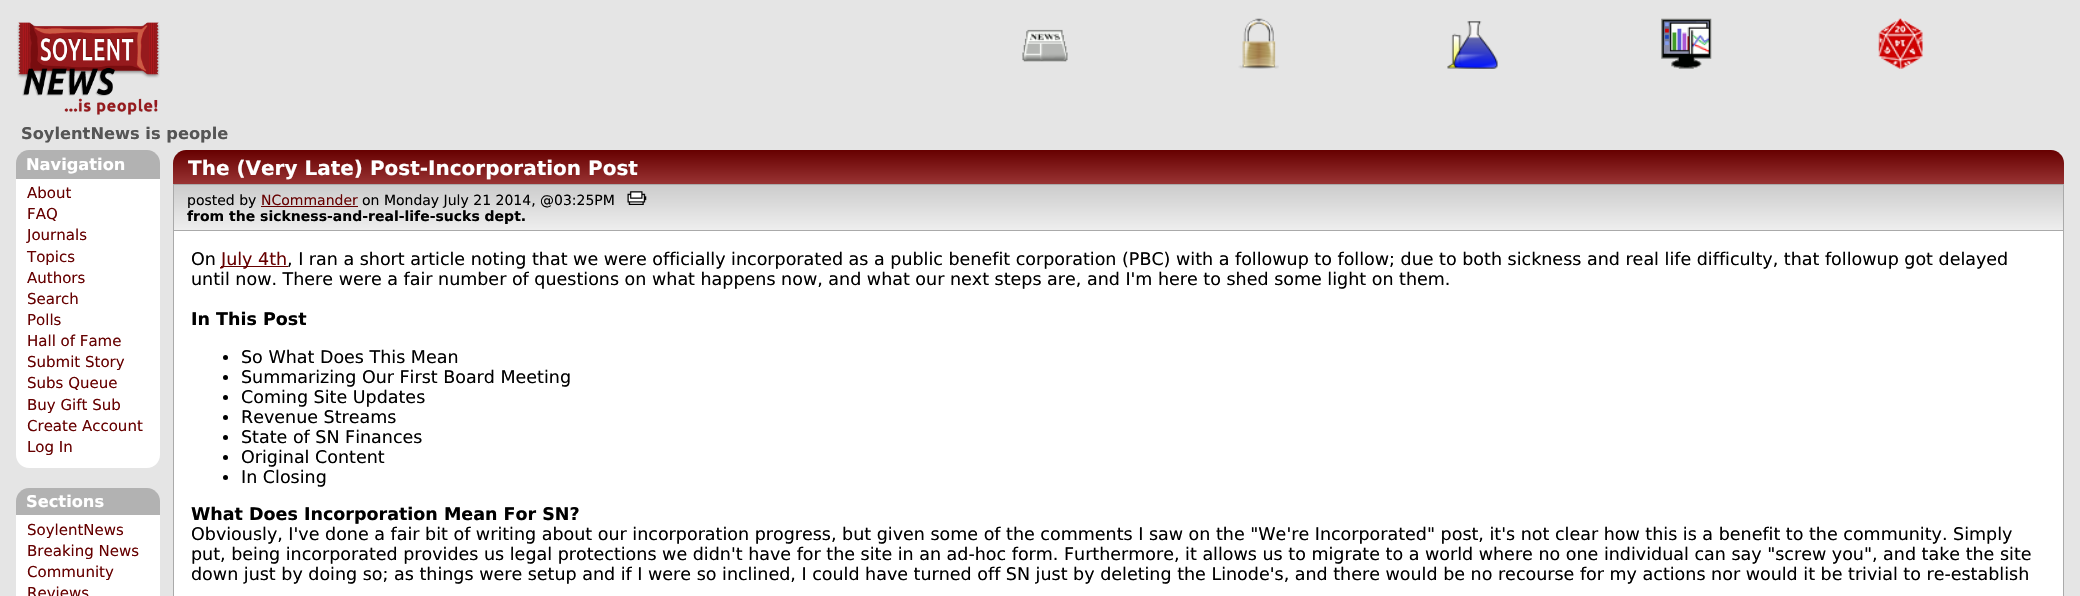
void draw(SkCanvas* canvas) {
	SkPaint paint;
	paint.setAntiAlias(true);
	auto svgPath = [&](const char* data, bool evenOdd = false) {
		SkPath result = *SkParsePath::FromSVGString(data);
		if (evenOdd) result.setFillType(SkPathFillType::kEvenOdd);
		return result;
	};
	canvas->clear(0xffe5e5e5);
	canvas->drawImageRect(SkImages::DeferredFromEncodedData(SkData::MakeFromFileName("img1.png")), SkRect::MakeXYWH(17, 22, 143, 93), SkSamplingOptions());
	canvas->drawImageRect(SkImages::DeferredFromEncodedData(SkData::MakeFromFileName("img2.png")), SkRect::MakeXYWH(1022, 29, 46, 33), SkSamplingOptions());
	canvas->drawImageRect(SkImages::DeferredFromEncodedData(SkData::MakeFromFileName("img3.png")), SkRect::MakeXYWH(1238, 18, 41, 51), SkSamplingOptions());
	canvas->drawImageRect(SkImages::DeferredFromEncodedData(SkData::MakeFromFileName("img4.png")), SkRect::MakeXYWH(1447, 21, 51, 48), SkSamplingOptions());
	canvas->drawImageRect(SkImages::DeferredFromEncodedData(SkData::MakeFromFileName("img5.png")), SkRect::MakeXYWH(1661, 18, 51, 51), SkSamplingOptions());
	canvas->drawImageRect(SkImages::DeferredFromEncodedData(SkData::MakeFromFileName("img6.png")), SkRect::MakeXYWH(1878, 18, 45, 51), SkSamplingOptions());
	SkFont f1(fontMgr->matchFamilyStyle("DejaVu Sans", SkFontStyle::Bold()), 16.25);
	f1.setSubpixel(true);
	paint.setColor(0xff555555);
	canvas->drawString("SoylentNews is people", 21, 139, f1, paint);
	paint.setColor(0xffb2b2b2);
	canvas->drawPath(svgPath("M29 150H147C154 150 160 156 160 163V179H16V163C16 156 22 150 29 150Z"), paint);
	paint.setColor(0xffffffff);
	canvas->drawString("Navigation", 26, 170, f1, paint);
	canvas->drawPath(svgPath("M16 179H160V455C160 462 154 468 147 468H29C22 468 16 462 16 455Z"), paint);
	SkFont f2(fontMgr->matchFamilyStyle("DejaVu Sans", SkFontStyle::Normal()), 15);
	f2.setSubpixel(true);
	paint.setColor(0xff660000);
	canvas->drawString("About", 27, 198, f2, paint);
	canvas->drawString("FAQ", 27, 219, f2, paint);
	canvas->drawString("Journals", 27, 240, f2, paint);
	canvas->drawString("Topics", 27, 262, f2, paint);
	canvas->drawString("Authors", 27, 283, f2, paint);
	canvas->drawString("Search", 27, 304, f2, paint);
	canvas->drawString("Polls", 27, 325, f2, paint);
	canvas->drawString("Hall of Fame", 27, 346, f2, paint);
	canvas->drawString("Submit Story", 27, 367, f2, paint);
	canvas->drawString("Subs Queue", 27, 388, f2, paint);
	canvas->drawString("Buy Gift Sub", 27, 410, f2, paint);
	canvas->drawString("Create Account", 27, 431, f2, paint);
	canvas->drawString("Log In", 27, 452, f2, paint);
	paint.setColor(0xffb2b2b2);
	canvas->drawPath(svgPath("M29 488H147C154 488 160 494 160 501V515H16V501C16 494 22 488 29 488Z"), paint);
	paint.setColor(0xffffffff);
	canvas->drawString("Sections", 26, 507, f1, paint);
	canvas->drawRect(SkRect::MakeXYWH(16, 515, 144, 81), paint);
	paint.setColor(0xff660000);
	canvas->drawString("SoylentNews", 27, 535, f2, paint);
	canvas->drawString("Breaking News", 27, 556, f2, paint);
	canvas->drawString("Community", 27, 577, f2, paint);
	canvas->drawString("Reviews", 27, 598, f2, paint);
	{
		const SkColor colors[] = {0xff660000, 0xff993333};
		const float stops[] = {0, 1};
		const SkPoint ends[] = {{1118, 150}, {1118, 184}};
		paint.setShader(SkGradientShader::MakeLinear(ends, colors, stops, 2, SkTileMode::kClamp));
		paint.setAlpha(255);
	}
	canvas->drawPath(svgPath("M186 150H2051C2058 150 2064 156 2064 163V184H173V163C173 156 179 150 186 150Z"), paint);
	SkFont f3(fontMgr->matchFamilyStyle("DejaVu Sans", SkFontStyle::Bold()), 20);
	f3.setSubpixel(true);
	paint.setShader(nullptr);
	paint.setColor(0xffffffff);
	canvas->drawString("The (Very Late) Post-Incorporation Post", 188, 175, f3, paint);
	{
		const SkColor colors[] = {0xffcccccc, 0xffeeeeee};
		const float stops[] = {0, 1};
		const SkPoint ends[] = {{1118, 185}, {1118, 230}};
		paint.setShader(SkGradientShader::MakeLinear(ends, colors, stops, 2, SkTileMode::kClamp));
		paint.setAlpha(255);
	}
	canvas->drawRect(SkRect::MakeXYWH(174, 185, 1889, 45), paint);
	paint.setStroke(true);
	paint.setStrokeWidth(1);
	paint.setShader(nullptr);
	paint.setColor(0xffaaaaaa);
	canvas->drawRect(SkRect::MakeXYWH(173.5, 184.5, 1890, 46), paint);
	SkFont f4(fontMgr->matchFamilyStyle("DejaVu Sans", SkFontStyle::Normal()), 14);
	f4.setSubpixel(true);
	paint.setStroke(false);
	paint.setColor(0xff000000);
	canvas->drawString("posted by", 187, 205, f4, paint);
	paint.setColor(0xff660000);
	canvas->drawString("NCommander", 261, 205, f4, paint);
	canvas->drawRect(SkRect::MakeXYWH(261, 206, 97, 1), paint);
	paint.setColor(0xff000000);
	canvas->drawString("on Monday July 21 2014, @03:25PM", 362, 205, f4, paint);
	canvas->drawImageRect(SkImages::DeferredFromEncodedData(SkData::MakeFromFileName("img7.png")), SkRect::MakeXYWH(627, 191, 20, 14), SkSamplingOptions());
	SkFont f5(fontMgr->matchFamilyStyle("DejaVu Sans", SkFontStyle::Bold()), 14);
	f5.setSubpixel(true);
	canvas->drawString("from the sickness-and-real-life-sucks dept.", 187, 221, f5, paint);
	paint.setColor(0xffffffff);
	canvas->drawRect(SkRect::MakeXYWH(174, 231, 1889, 365), paint);
	paint.setColor(0xffaaaaaa);
	canvas->drawRect(SkRect::MakeXYWH(2063, 231, 1, 365), paint);
	canvas->drawRect(SkRect::MakeXYWH(173, 231, 1, 365), paint);
	SkFont f6(fontMgr->matchFamilyStyle("DejaVu Sans", SkFontStyle::Normal()), 17.5);
	f6.setSubpixel(true);
	paint.setColor(0xff000000);
	canvas->drawString("On", 191, 265, f6, paint);
	paint.setColor(0xff660000);
	canvas->drawRect(SkRect::MakeXYWH(221, 266, 67, 1), paint);
	canvas->drawString("July 4th", 221, 265, f6, paint);
	paint.setColor(0xff000000);
	canvas->drawString(", I ran a short article noting that we were officially incorporated as a public benefit corporation (PBC) with a followup to follow; due to both sickness and real life difficulty, that followup got delayed", 287, 265, f6, paint);
	canvas->drawString("until now. There were a fair number of questions on what happens now, and what our next steps are, and I'm here to shed some light on them.", 191, 285, f6, paint);
	SkFont f7(fontMgr->matchFamilyStyle("DejaVu Sans", SkFontStyle::Bold()), 17.5);
	f7.setSubpixel(true);
	canvas->drawString("In This Post", 191, 325, f7, paint);
	canvas->drawCircle(225.5, 357.5, 2.5, paint);
	canvas->drawString("So What Does This Mean", 241, 363, f6, paint);
	canvas->drawCircle(225.5, 377.5, 2.5, paint);
	canvas->drawString("Summarizing Our First Board Meeting", 241, 383, f6, paint);
	canvas->drawCircle(225.5, 397.5, 2.5, paint);
	canvas->drawString("Coming Site Updates", 241, 403, f6, paint);
	canvas->drawCircle(225.5, 417.5, 2.5, paint);
	canvas->drawString("Revenue Streams", 241, 423, f6, paint);
	canvas->drawCircle(225.5, 437.5, 2.5, paint);
	canvas->drawString("State of SN Finances", 241, 443, f6, paint);
	canvas->drawCircle(225.5, 457.5, 2.5, paint);
	canvas->drawString("Original Content", 241, 463, f6, paint);
	canvas->drawCircle(225.5, 477.5, 2.5, paint);
	canvas->drawString("In Closing", 241, 483, f6, paint);
	canvas->drawString("What Does Incorporation Mean For SN?", 191, 520, f7, paint);
	canvas->drawString("Obviously, I've done a fair bit of writing about our incorporation progress, but given some of the comments I saw on the \"We're Incorporated\" post, it's not clear how this is a benefit to the community. Simply", 191, 540, f6, paint);
	canvas->drawString("put, being incorporated provides us legal protections we didn't have for the site in an ad-hoc form. Furthermore, it allows us to migrate to a world where no one individual can say \"screw you\", and take the site", 191, 560, f6, paint);
	canvas->drawString("down just by doing so; as things were setup and if I were so inclined, I could have turned off SN just by deleting the Linode's, and there would be no recourse for my actions nor would it be trivial to re-establish", 191, 580, f6, paint);
}
